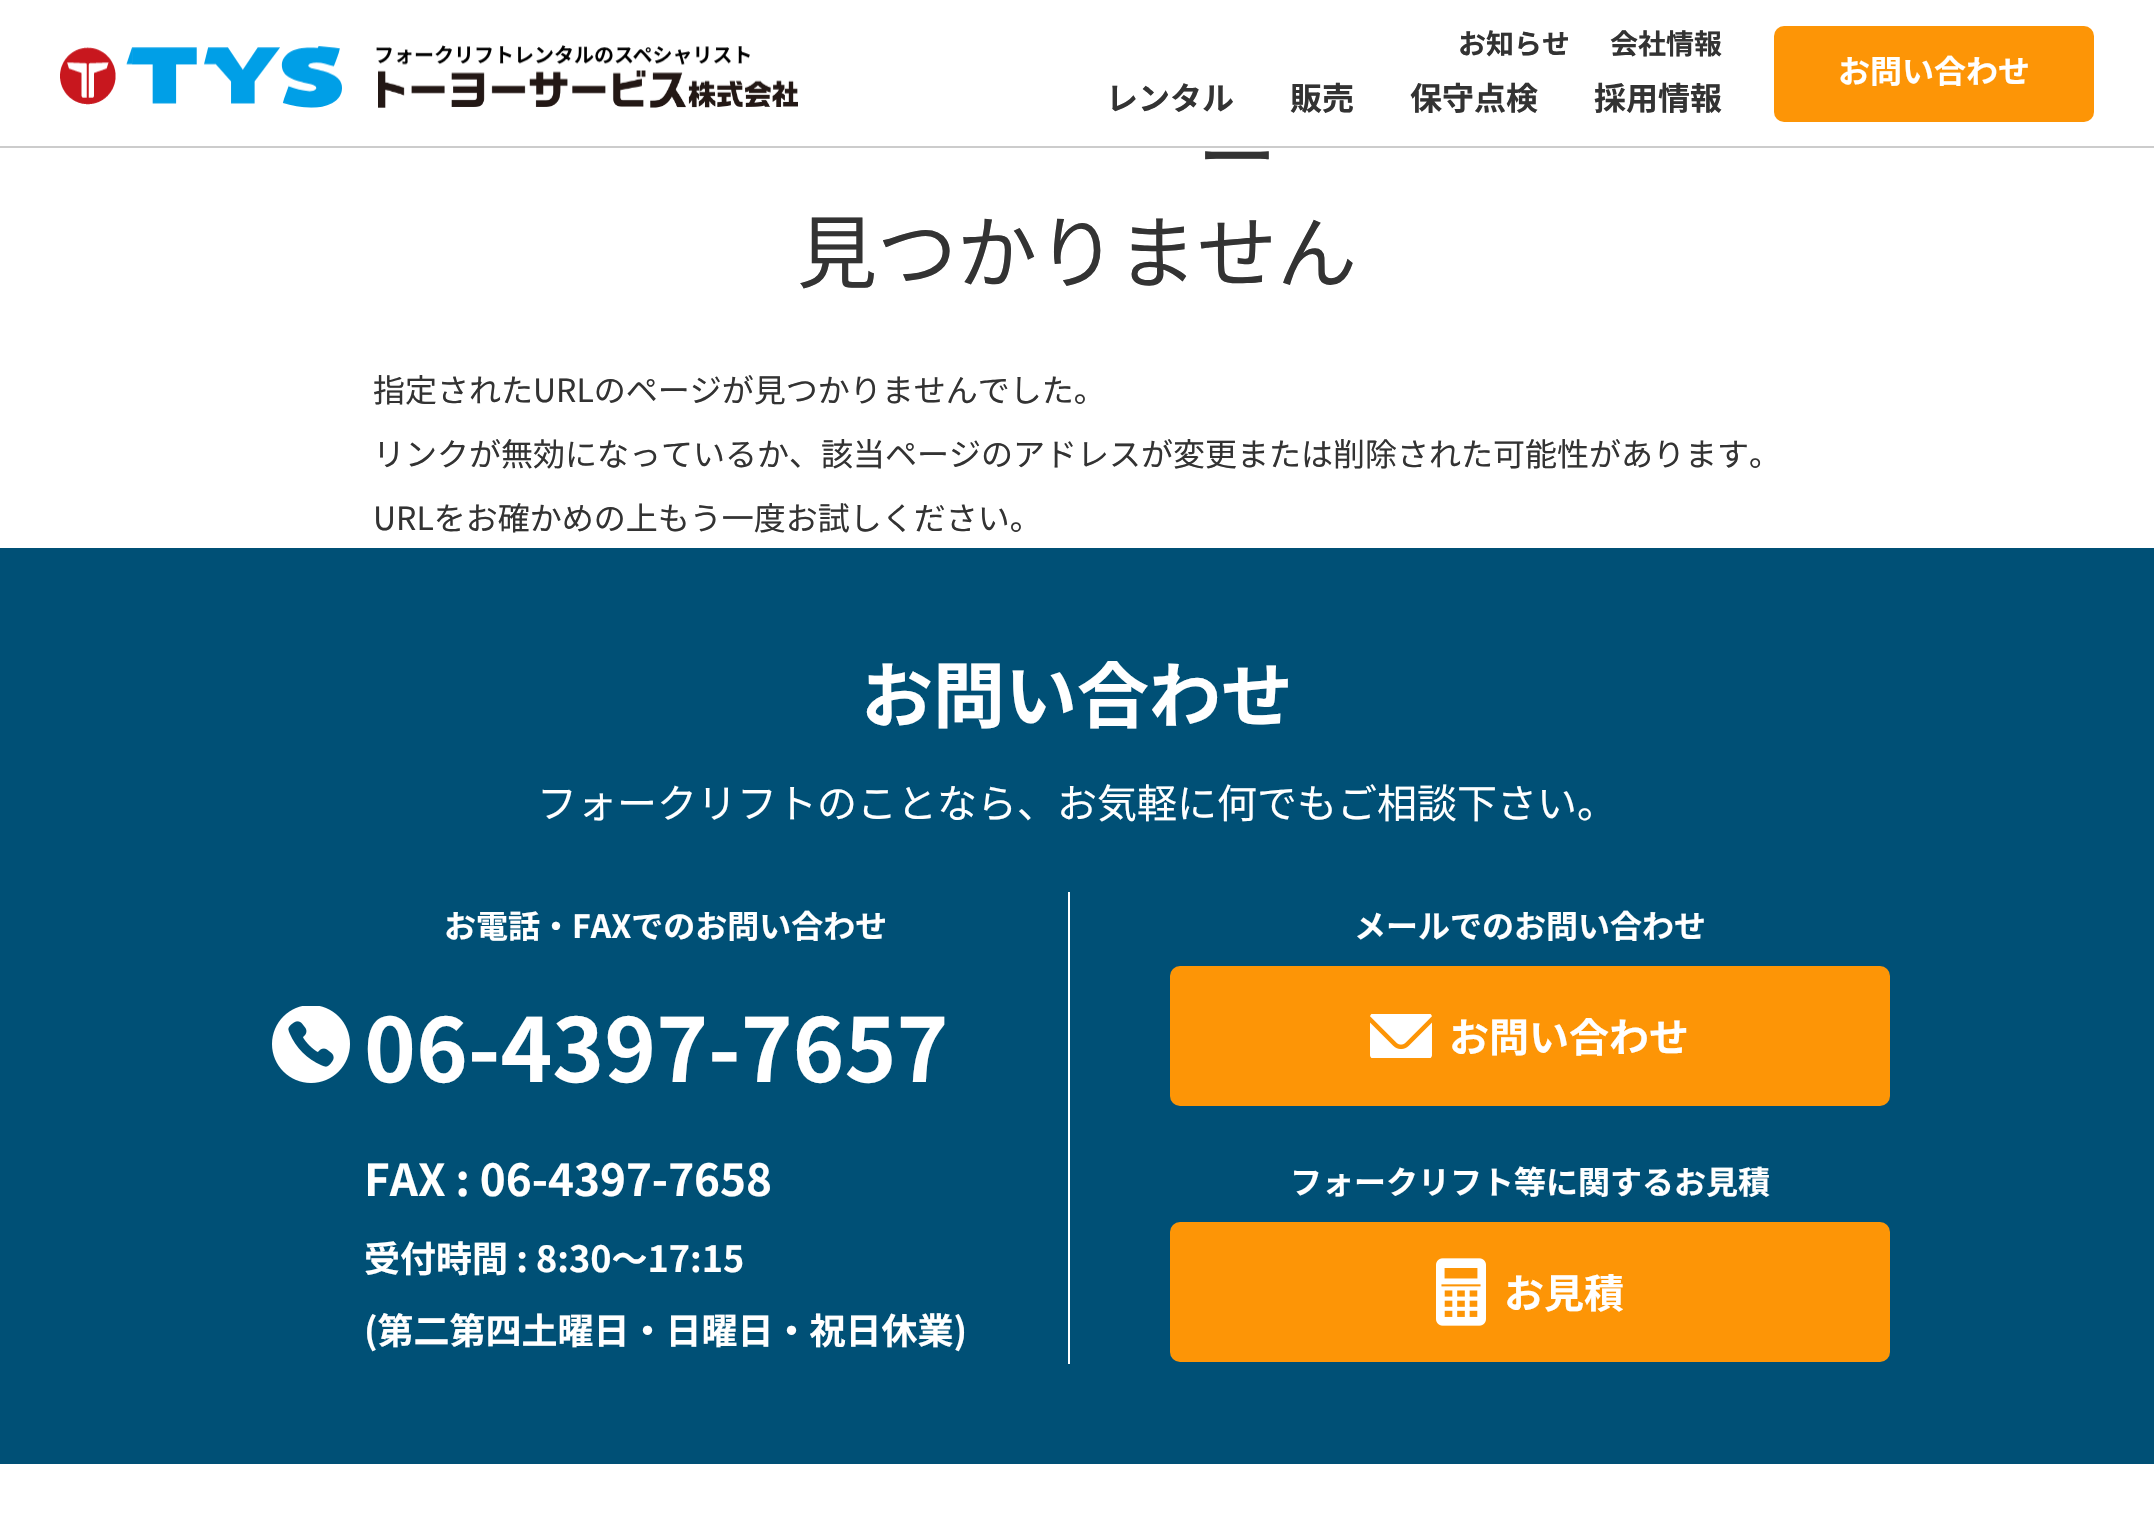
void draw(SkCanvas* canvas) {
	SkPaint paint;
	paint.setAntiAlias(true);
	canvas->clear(0xffffffff);
	paint.setColor(0xffcccccc);
	canvas->drawRect(SkRect::MakeXYWH(0, 146, 2154, 2), paint);
	canvas->drawImageRect(SkImages::DeferredFromEncodedData(SkData::MakeFromFileName("img1.png")), SkRect::MakeXYWH(60, 45, 738, 63), SkSamplingOptions());
	SkFont f1(fontMgr->matchFamilyStyle("Noto Sans JP", SkFontStyle::Bold()), 28);
	f1.setSubpixel(true);
	paint.setColor(0xff333333);
	canvas->drawString("お知らせ", 1458, 54, f1, paint);
	canvas->drawString("会社情報", 1610, 54, f1, paint);
	SkFont f2(fontMgr->matchFamilyStyle("Noto Sans JP", SkFontStyle::Bold()), 32);
	f2.setSubpixel(true);
	canvas->drawString("レンタル", 1106, 110, f2, paint);
	canvas->drawString("販売", 1290, 110, f2, paint);
	canvas->drawString("保守点検", 1410, 110, f2, paint);
	canvas->drawString("採用情報", 1594, 110, f2, paint);
	paint.setColor(0xfffd9506);
	canvas->drawRoundRect(SkRect::MakeXYWH(1774, 26, 320, 96), 10, 10, paint);
	paint.setColor(0xffffffff);
	canvas->drawString("お問い合わせ", 1838, 83, f2, paint);
	SkFont f3(fontMgr->matchFamilyStyle("Noto Sans JP", SkFontStyle::Normal()), 80);
	f3.setSubpixel(true);
	paint.setColor(0xff333333);
	canvas->drawString("ー", 1197, 186, f3, paint);
	canvas->drawString("見つかりません", 797, 282, f3, paint);
	SkFont f4(fontMgr->matchFamilyStyle("Noto Sans JP", SkFontStyle::Normal()), 32);
	f4.setSubpixel(true);
	canvas->drawString("指定されたURLのページが見つかりませんでした。", 373, 402, f4, paint);
	canvas->drawString("リンクが無効になっているか、該当ページのアドレスが変更または削除された可能性があります。", 373, 466, f4, paint);
	canvas->drawString("URLをお確かめの上もう一度お試しください。", 373, 530, f4, paint);
	paint.setColor(0xff005076);
	canvas->drawRect(SkRect::MakeXYWH(0, 548, 2154, 916), paint);
	SkFont f5(fontMgr->matchFamilyStyle("Noto Sans JP", SkFontStyle::Bold()), 72);
	f5.setSubpixel(true);
	paint.setColor(0xffffffff);
	canvas->drawString("お問い合わせ", 861, 722, f5, paint);
	SkFont f6(fontMgr->matchFamilyStyle("Noto Sans JP", SkFontStyle::Normal()), 40);
	f6.setSubpixel(true);
	canvas->drawString("フォークリフトのことなら、お気軽に何でもご相談下さい。", 537, 818, f6, paint);
	canvas->drawString("お電話・FAXでのお問い合わせ", 444, 938, f2, paint);
	canvas->drawImageRect(SkImages::DeferredFromEncodedData(SkData::MakeFromFileName("img2.png")), SkRect::MakeXYWH(272, 1006, 78, 77), SkSamplingOptions());
	SkFont f7(fontMgr->matchFamilyStyle("Noto Sans JP", SkFontStyle::Bold()), 88);
	f7.setSubpixel(true);
	canvas->drawString("06-4397-7657", 364, 1082, f7, paint);
	SkFont f8(fontMgr->matchFamilyStyle("Noto Sans JP", SkFontStyle::Bold()), 44);
	f8.setSubpixel(true);
	canvas->drawString("FAX : 06-4397-7658", 364, 1196, f8, paint);
	SkFont f9(fontMgr->matchFamilyStyle("Noto Sans JP", SkFontStyle::Bold()), 36);
	f9.setSubpixel(true);
	canvas->drawString("受付時間 : 8:30〜17:15", 364, 1272, f9, paint);
	canvas->drawString("(第二第四土曜日・日曜日・祝日休業)", 364, 1344, f9, paint);
	canvas->drawRect(SkRect::MakeXYWH(1068, 892, 2, 472), paint);
	canvas->drawString("メールでのお問い合わせ", 1354, 938, f2, paint);
	paint.setColor(0xfffd9506);
	canvas->drawRoundRect(SkRect::MakeXYWH(1170, 966, 720, 140), 10, 10, paint);
	canvas->drawImageRect(SkImages::DeferredFromEncodedData(SkData::MakeFromFileName("img3.png")), SkRect::MakeXYWH(1370, 1014, 62, 44), SkSamplingOptions());
	SkFont f10(fontMgr->matchFamilyStyle("Noto Sans JP", SkFontStyle::Bold()), 40);
	f10.setSubpixel(true);
	paint.setColor(0xffffffff);
	canvas->drawString("お問い合わせ", 1449, 1052, f10, paint);
	canvas->drawString("フォークリフト等に関するお見積", 1290, 1194, f2, paint);
	paint.setColor(0xfffd9506);
	canvas->drawRoundRect(SkRect::MakeXYWH(1170, 1222, 720, 140), 10, 10, paint);
	canvas->drawImageRect(SkImages::DeferredFromEncodedData(SkData::MakeFromFileName("img4.png")), SkRect::MakeXYWH(1436, 1258, 50, 68), SkSamplingOptions());
	paint.setColor(0xffffffff);
	canvas->drawString("お見積", 1504, 1308, f10, paint);
}
